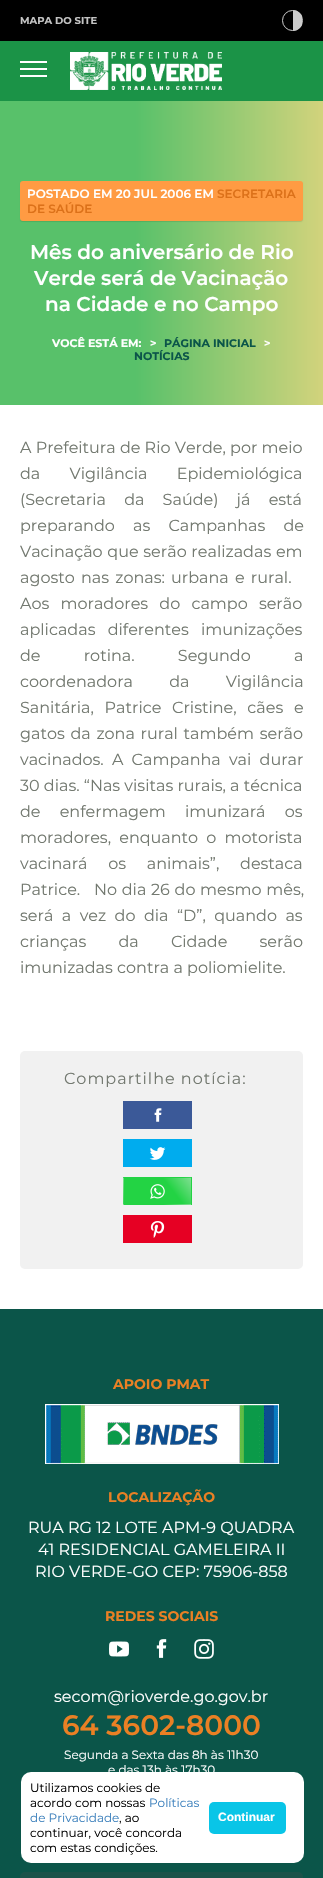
void draw(SkCanvas* canvas) {
	SkPaint paint;
	paint.setAntiAlias(true);
	auto spacedText = [&](const char* s, float x, float y, const SkFont& font, const SkPaint& ink, float letter, float word) {
		std::vector<SkGlyphID> glyphs(font.countText(s, strlen(s), SkTextEncoding::kUTF8));
		std::vector<float> xs(glyphs.size());
		font.textToGlyphs(s, strlen(s), SkTextEncoding::kUTF8, glyphs);
		font.getXPos(glyphs, xs, x);
		float extra = 0;
		for (size_t i = 0; i < glyphs.size(); i++) {
			xs[i] += extra;
			extra += letter + word * (glyphs[i] == font.unicharToGlyph(' '));
		}
		canvas->drawTextBlob(SkTextBlob::MakeFromPosHGlyphs(glyphs, xs, y, font), 0, 0, ink);
	};
	auto svgPath = [&](const char* data, bool evenOdd = false) {
		SkPath result = *SkParsePath::FromSVGString(data);
		if (evenOdd) result.setFillType(SkPathFillType::kEvenOdd);
		return result;
	};
	canvas->clear(0xffffffff);
	paint.setColor(0xff000000);
	canvas->drawRect(SkRect::MakeXYWH(0, 0, 323, 41), paint);
	SkFont f1(fontMgr->matchFamilyStyle("Montserrat", SkFontStyle::Bold()), 10);
	f1.setSubpixel(true);
	paint.setColor(0xffc4c4c4);
	canvas->drawString("MAPA DO SITE", 20, 24, f1, paint);
	canvas->save();
	canvas->clipPath(svgPath("M292.5 10C298.5 10 303 14.5 303 20.5C303 26.5 298.5 31 292.5 31C286.5 31 282 26.5 282 20.5C282 14.5 286.5 10 292.5 10Z"), true);
	paint.setColor(0xffcccccc);
	canvas->drawRect(SkRect::MakeXYWH(293, 10, 9, 21), paint);
	canvas->restore();
	paint.setStroke(true);
	paint.setStrokeWidth(1);
	canvas->drawCircle(292.5, 20.5, 10, paint);
	paint.setStroke(false);
	paint.setColor(0xff1b9347);
	canvas->drawRect(SkRect::MakeXYWH(0, 41, 323, 60), paint);
	paint.setColor(0xffffffff);
	canvas->drawRect(SkRect::MakeXYWH(20, 68, 27, 2), paint);
	canvas->drawRect(SkRect::MakeXYWH(20, 61, 27, 2), paint);
	canvas->drawRect(SkRect::MakeXYWH(20, 75, 27, 2), paint);
	canvas->drawImageRect(SkImages::DeferredFromEncodedData(SkData::MakeFromFileName("img1.png")), SkRect::MakeXYWH(70, 52, 152, 38), SkSamplingOptions());
	{
		const SkColor colors[] = {0xffd2d37c, 0xff58c16a};
		const float stops[] = {0, 0.58};
		const SkPoint ends[] = {{323, 253}, {0, 253}};
		paint.setShader(SkGradientShader::MakeLinear(ends, colors, stops, 2, SkTileMode::kClamp));
		paint.setAlpha(255);
	}
	canvas->drawRect(SkRect::MakeXYWH(0, 101, 323, 304), paint);
	paint.setShader(nullptr);
	paint.setColor(0x1a000000);
	paint.setMaskFilter(SkMaskFilter::MakeBlur(kNormal_SkBlurStyle, 0.5));
	canvas->drawRoundRect(SkRect::MakeXYWH(20, 182, 283, 40), 3, 3, paint);
	paint.setMaskFilter(nullptr);
	paint.setColor(0xffff9b43);
	canvas->drawRoundRect(SkRect::MakeXYWH(20, 181, 283, 40), 3, 3, paint);
	SkFont f2(fontMgr->matchFamilyStyle("Montserrat", SkFontStyle(600, SkFontStyle::kNormal_Width, SkFontStyle::kUpright_Slant)), 12);
	f2.setSubpixel(true);
	paint.setColor(0xffffffff);
	canvas->drawString("POSTADO EM 20 JUL 2006 EM", 27, 198, f2, paint);
	paint.setColor(0xffdc7119);
	canvas->drawString("SECRETARIA", 217, 198, f2, paint);
	canvas->drawString("DE SAÚDE", 27, 213, f2, paint);
	SkFont f3(fontMgr->matchFamilyStyle("Montserrat", SkFontStyle(600, SkFontStyle::kNormal_Width, SkFontStyle::kUpright_Slant)), 20);
	f3.setSubpixel(true);
	paint.setColor(0xffffffff);
	canvas->drawString("Mês do aniversário de Rio", 30, 259, f3, paint);
	canvas->drawString("Verde será de Vacinação", 34, 285, f3, paint);
	canvas->drawString("na Cidade e no Campo", 45, 311, f3, paint);
	SkFont f4(fontMgr->matchFamilyStyle("Montserrat", SkFontStyle::Bold()), 11);
	f4.setSubpixel(true);
	canvas->drawString("VOCÊ ESTÁ EM:", 52, 347, f4, paint);
	canvas->drawString(">", 150, 347, f4, paint);
	paint.setColor(0xff0b5549);
	canvas->drawString("PÁGINA INICIAL", 164, 347, f4, paint);
	paint.setColor(0xffffffff);
	canvas->drawString(">", 264, 347, f4, paint);
	paint.setColor(0xff0b5549);
	canvas->drawString("NOTÍCIAS", 134, 360, f4, paint);
	SkFont f5(fontMgr->matchFamilyStyle("Montserrat", SkFontStyle::Normal()), 16);
	f5.setSubpixel(true);
	paint.setColor(0xff737970);
	canvas->drawString("A Prefeitura de Rio Verde, por meio", 20, 453, f5, paint);
	spacedText("da Vigilância Epidemiológica", 20, 479, f5, paint, 0, 25);
	spacedText("(Secretaria da Saúde) já está", 20, 505, f5, paint, 0, 14);
	spacedText("preparando as Campanhas de", 20, 531, f5, paint, 0, 14);
	spacedText("Vacinação que serão realizadas em", 20, 557, f5, paint, 0, 0.5);
	spacedText("agosto nas zonas: urbana e rural.", 20, 583, f5, paint, 0, 2);
	spacedText("Aos moradores do campo serão", 20, 609, f5, paint, 0, 7);
	spacedText("aplicadas diferentes imunizações", 20, 635, f5, paint, 0, 8);
	spacedText("de rotina. Segundo a", 20, 661, f5, paint, 0, 39);
	spacedText("coordenadora da Vigilância", 20, 687, f5, paint, 0, 32);
	spacedText("Sanitária, Patrice Cristine, cães e", 20, 713, f5, paint, 0, 6.5);
	spacedText("gatos da zona rural também serão", 20, 739, f5, paint, 0, 1.5);
	spacedText("vacinados. A Campanha vai durar", 20, 765, f5, paint, 0, 4);
	canvas->drawString("30 dias. “Nas visitas rurais, a técnica", 20, 791, f5, paint);
	spacedText("de enfermagem imunizará os", 20, 817, f5, paint, 0, 15);
	spacedText("moradores, enquanto o motorista", 20, 843, f5, paint, 0, 4);
	spacedText("vacinará os animais”, destaca", 20, 869, f5, paint, 0, 16.5);
	canvas->drawString("Patrice.", 20, 895, f5, paint);
	spacedText("No dia 26 do mesmo mês,", 94, 895, f5, paint, 0, 0.5);
	spacedText("será a vez do dia “D”, quando as", 20, 921, f5, paint, 0, 4.25);
	spacedText("crianças da Cidade serão", 20, 947, f5, paint, 0, 28);
	canvas->drawString("imunizadas contra a poliomielite.", 20, 973, f5, paint);
	paint.setColor(0xfff1f1f1);
	canvas->drawRoundRect(SkRect::MakeXYWH(20, 1051, 283, 218), 5, 5, paint);
	paint.setColor(0xff737970);
	spacedText("Compartilhe notícia:", 64, 1084, f5, paint, 1, 0);
	paint.setColor(0xff3b5998);
	canvas->drawRect(SkRect::MakeXYWH(123, 1101, 69, 28), paint);
	canvas->drawImageRect(SkImages::DeferredFromEncodedData(SkData::MakeFromFileName("img2.png")), SkRect::MakeXYWH(154, 1108, 8, 14), SkSamplingOptions());
	paint.setColor(0xff00acee);
	canvas->drawRect(SkRect::MakeXYWH(123, 1139, 69, 28), paint);
	canvas->drawImageRect(SkImages::DeferredFromEncodedData(SkData::MakeFromFileName("img3.png")), SkRect::MakeXYWH(149, 1147, 17, 13), SkSamplingOptions());
	{
		const SkColor colors[] = {0xff8be09b, 0xff23d344};
		const float stops[] = {0, 0.35};
		const SkPoint ends[] = {{120, 1142}, {63, 1186}};
		paint.setShader(SkGradientShader::MakeLinear(ends, colors, stops, 2, SkTileMode::kClamp));
		paint.setAlpha(255);
	}
	canvas->drawRect(SkRect::MakeXYWH(123, 1177, 1, 1), paint);
	{
		const SkColor colors[] = {0xff8be09b, 0xff23d344};
		const float stops[] = {0, 0.35};
		const SkPoint ends[] = {{187, 1142}, {130, 1186}};
		paint.setShader(SkGradientShader::MakeLinear(ends, colors, stops, 2, SkTileMode::kClamp));
		paint.setAlpha(255);
	}
	canvas->drawRect(SkRect::MakeXYWH(124, 1177, 67, 1), paint);
	{
		const SkColor colors[] = {0xff8be09b, 0xff23d344};
		const float stops[] = {0, 0.35};
		const SkPoint ends[] = {{254, 1142}, {197, 1186}};
		paint.setShader(SkGradientShader::MakeLinear(ends, colors, stops, 2, SkTileMode::kClamp));
		paint.setAlpha(255);
	}
	canvas->drawRect(SkRect::MakeXYWH(191, 1177, 1, 1), paint);
	{
		const SkColor colors[] = {0xff8be09b, 0xff23d344};
		const float stops[] = {0, 0.35};
		const SkPoint ends[] = {{120, 1168}, {63, 1212}};
		paint.setShader(SkGradientShader::MakeLinear(ends, colors, stops, 2, SkTileMode::kClamp));
		paint.setAlpha(255);
	}
	canvas->drawRect(SkRect::MakeXYWH(123, 1178, 1, 26), paint);
	{
		const SkColor colors[] = {0xff8be09b, 0xff23d344};
		const float stops[] = {0, 0.35};
		const SkPoint ends[] = {{187, 1168}, {130, 1212}};
		paint.setShader(SkGradientShader::MakeLinear(ends, colors, stops, 2, SkTileMode::kClamp));
		paint.setAlpha(255);
	}
	canvas->drawRect(SkRect::MakeXYWH(124, 1178, 67, 26), paint);
	{
		const SkColor colors[] = {0xff8be09b, 0xff23d344};
		const float stops[] = {0, 0.35};
		const SkPoint ends[] = {{254, 1168}, {197, 1212}};
		paint.setShader(SkGradientShader::MakeLinear(ends, colors, stops, 2, SkTileMode::kClamp));
		paint.setAlpha(255);
	}
	canvas->drawRect(SkRect::MakeXYWH(191, 1178, 1, 26), paint);
	{
		const SkColor colors[] = {0xff8be09b, 0xff23d344};
		const float stops[] = {0, 0.35};
		const SkPoint ends[] = {{120, 1194}, {63, 1238}};
		paint.setShader(SkGradientShader::MakeLinear(ends, colors, stops, 2, SkTileMode::kClamp));
		paint.setAlpha(255);
	}
	canvas->drawRect(SkRect::MakeXYWH(123, 1204, 1, 1), paint);
	{
		const SkColor colors[] = {0xff8be09b, 0xff23d344};
		const float stops[] = {0, 0.35};
		const SkPoint ends[] = {{187, 1194}, {130, 1238}};
		paint.setShader(SkGradientShader::MakeLinear(ends, colors, stops, 2, SkTileMode::kClamp));
		paint.setAlpha(255);
	}
	canvas->drawRect(SkRect::MakeXYWH(124, 1204, 67, 1), paint);
	{
		const SkColor colors[] = {0xff8be09b, 0xff23d344};
		const float stops[] = {0, 0.35};
		const SkPoint ends[] = {{254, 1194}, {197, 1238}};
		paint.setShader(SkGradientShader::MakeLinear(ends, colors, stops, 2, SkTileMode::kClamp));
		paint.setAlpha(255);
	}
	canvas->drawRect(SkRect::MakeXYWH(191, 1204, 1, 1), paint);
	canvas->drawImageRect(SkImages::DeferredFromEncodedData(SkData::MakeFromFileName("img4.png")), SkRect::MakeXYWH(150, 1184, 15, 15), SkSamplingOptions());
	paint.setShader(nullptr);
	paint.setColor(0xffe60023);
	canvas->drawRect(SkRect::MakeXYWH(123, 1215, 69, 28), paint);
	canvas->drawImageRect(SkImages::DeferredFromEncodedData(SkData::MakeFromFileName("img5.png")), SkRect::MakeXYWH(150, 1221, 15, 17), SkSamplingOptions());
	paint.setColor(0xff0b5549);
	canvas->drawRect(SkRect::MakeXYWH(0, 1309, 323, 569), paint);
	SkFont f6(fontMgr->matchFamilyStyle("Montserrat", SkFontStyle::Bold()), 14);
	f6.setSubpixel(true);
	paint.setColor(0xffea8024);
	canvas->drawString("APOIO PMAT", 113, 1389, f6, paint);
	canvas->drawImageRect(SkImages::DeferredFromEncodedData(SkData::MakeFromFileName("img6.png")), SkRect::MakeXYWH(45, 1404, 234, 60), SkSamplingOptions());
	canvas->drawString("LOCALIZAÇÃO", 108, 1502, f6, paint);
	paint.setColor(0xffffffff);
	canvas->drawString("RUA RG 12 LOTE APM-9 QUADRA", 28, 1533, f5, paint);
	canvas->drawString("41 RESIDENCIAL GAMELEIRA II", 38, 1555, f5, paint);
	canvas->drawString("RIO VERDE-GO CEP: 75906-858", 35, 1577, f5, paint);
	paint.setColor(0xffea8024);
	canvas->drawString("REDES SOCIAIS", 105, 1621, f6, paint);
	canvas->drawImageRect(SkImages::DeferredFromEncodedData(SkData::MakeFromFileName("img7.png")), SkRect::MakeXYWH(109, 1641, 20, 16), SkSamplingOptions());
	canvas->drawImageRect(SkImages::DeferredFromEncodedData(SkData::MakeFromFileName("img8.png")), SkRect::MakeXYWH(156, 1639, 11, 19), SkSamplingOptions());
	canvas->drawImageRect(SkImages::DeferredFromEncodedData(SkData::MakeFromFileName("img9.png")), SkRect::MakeXYWH(194, 1639, 20, 20), SkSamplingOptions());
	paint.setColor(0xffffffff);
	canvas->drawString("secom@rioverde.go.gov.br", 54, 1702, f5, paint);
	SkFont f7(fontMgr->matchFamilyStyle("Montserrat", SkFontStyle(600, SkFontStyle::kNormal_Width, SkFontStyle::kUpright_Slant)), 28);
	f7.setSubpixel(true);
	paint.setColor(0xffea8024);
	canvas->drawString("64 3602-8000", 62, 1735, f7, paint);
	SkFont f8(fontMgr->matchFamilyStyle("Montserrat", SkFontStyle::Normal()), 12);
	f8.setSubpixel(true);
	paint.setColor(0xffffffff);
	canvas->drawString("Segunda a Sexta das 8h às 11h30", 64, 1759, f8, paint);
	canvas->drawString("e das 13h às 17h30", 108, 1774, f8, paint);
	paint.setColor(0xff1b534a);
	canvas->drawRoundRect(SkRect::MakeXYWH(20, 1872, 283, 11), 5, 5, paint);
	paint.setColor(0xffffffff);
	canvas->drawRoundRect(SkRect::MakeXYWH(21, 1772, 283, 91), 10, 10, paint);
	paint.setColor(0xff000000);
	canvas->drawString("Utilizamos cookies de", 30, 1792, f8, paint);
	canvas->drawString("acordo com nossas", 30, 1807, f8, paint);
	paint.setColor(0xff3c80bc);
	canvas->drawString("Políticas", 149, 1807, f8, paint);
	canvas->drawString("de Privacidade", 30, 1822, f8, paint);
	paint.setColor(0xff000000);
	canvas->drawString(", ao", 119, 1822, f8, paint);
	canvas->drawString("continuar, você concorda", 30, 1837, f8, paint);
	canvas->drawString("com estas condições.", 30, 1852, f8, paint);
	paint.setColor(0xff09c5e7);
	canvas->drawRoundRect(SkRect::MakeXYWH(209, 1802, 77, 32), 5, 5, paint);
	SkFont f9(fontMgr->matchFamilyStyle("Liberation Sans", SkFontStyle::Bold()), 12);
	f9.setSubpixel(true);
	paint.setColor(0xffffffff);
	canvas->drawString("Continuar", 218, 1821, f9, paint);
}
